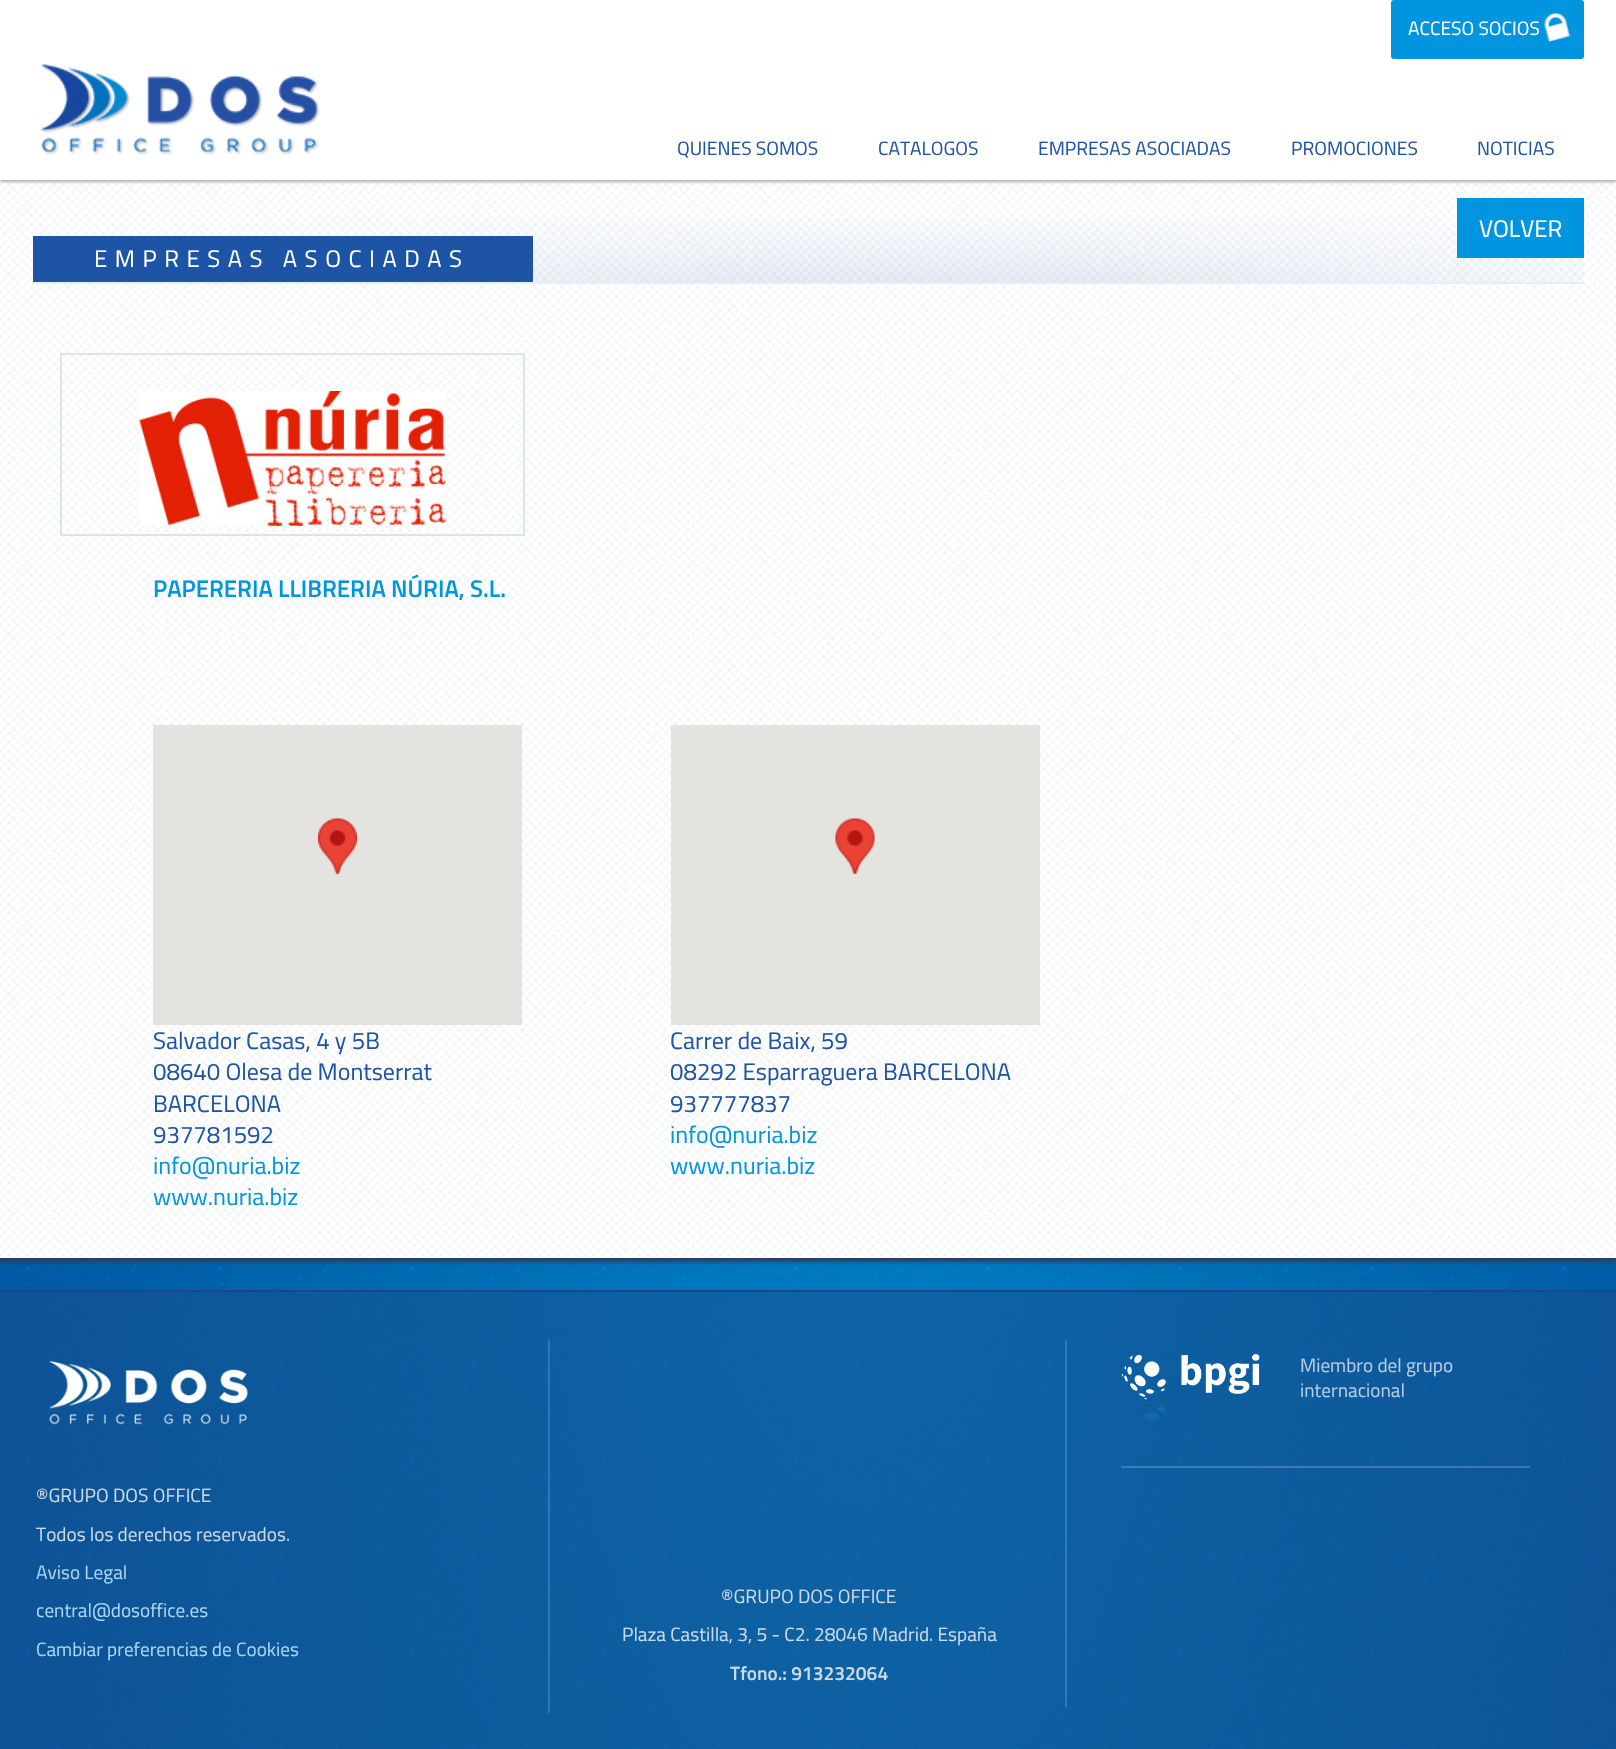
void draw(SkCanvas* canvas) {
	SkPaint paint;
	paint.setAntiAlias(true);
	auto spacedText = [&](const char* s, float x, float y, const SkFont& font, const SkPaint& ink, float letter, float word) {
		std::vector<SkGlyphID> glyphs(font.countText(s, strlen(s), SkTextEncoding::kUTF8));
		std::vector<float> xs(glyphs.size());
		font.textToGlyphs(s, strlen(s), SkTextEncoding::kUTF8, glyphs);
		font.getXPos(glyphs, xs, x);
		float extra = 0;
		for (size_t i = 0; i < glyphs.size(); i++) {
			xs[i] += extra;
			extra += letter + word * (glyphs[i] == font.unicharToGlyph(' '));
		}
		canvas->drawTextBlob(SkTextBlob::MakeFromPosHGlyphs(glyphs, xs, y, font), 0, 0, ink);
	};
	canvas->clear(0xffffffff);
	canvas->drawImageRect(SkImages::DeferredFromEncodedData(SkData::MakeFromFileName("img1.png")), SkRect::MakeXYWH(0, 1745, 1616, 4), SkSamplingOptions());
	canvas->drawImageRect(SkImages::DeferredFromEncodedData(SkData::MakeFromFileName("img2.png")), SkRect::MakeXYWH(0, 1258, 1616, 487), SkSamplingOptions());
	paint.setColor(0xff243f64);
	paint.setMaskFilter(SkMaskFilter::MakeBlur(kNormal_SkBlurStyle, 2));
	canvas->drawRect(SkRect::MakeXYWH(-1, 179, 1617, 1083), paint);
	paint.setMaskFilter(nullptr);
	canvas->drawImageRect(SkImages::DeferredFromEncodedData(SkData::MakeFromFileName("img5.png")), SkRect::MakeXYWH(0, 180, 1616, 1078), SkSamplingOptions());
	paint.setColor(0x4d000000);
	paint.setMaskFilter(SkMaskFilter::MakeBlur(kNormal_SkBlurStyle, 1.5));
	canvas->drawRect(SkRect::MakeXYWH(0, 2, 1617, 180), paint);
	paint.setMaskFilter(nullptr);
	paint.setColor(0xffffffff);
	canvas->drawRect(SkRect::MakeXYWH(0, 0, 1616, 180), paint);
	paint.setColor(0xff0095de);
	canvas->drawRoundRect(SkRect::MakeXYWH(1391, 0, 193, 59), 3, 3, paint);
	SkFont f1(fontMgr->matchFamilyStyle("Titillium Web", SkFontStyle::Normal()), 19.25);
	f1.setSubpixel(true);
	paint.setColor(0xffffffff);
	canvas->drawString("ACCESO SOCIOS", 1408, 35, f1, paint);
	canvas->drawImageRect(SkImages::DeferredFromEncodedData(SkData::MakeFromFileName("img3.png")), SkRect::MakeXYWH(1543, 13, 28, 29), SkSamplingOptions());
	canvas->drawImageRect(SkImages::DeferredFromEncodedData(SkData::MakeFromFileName("img4.png")), SkRect::MakeXYWH(40, 64, 280, 91), SkSamplingOptions());
	paint.setColor(0xff1d54a5);
	canvas->drawString("QUIENES SOMOS", 677, 155, f1, paint);
	canvas->drawString("CATALOGOS", 878, 155, f1, paint);
	canvas->drawString("EMPRESAS ASOCIADAS", 1038, 155, f1, paint);
	canvas->drawString("PROMOCIONES", 1291, 155, f1, paint);
	canvas->drawString("NOTICIAS", 1477, 155, f1, paint);
	canvas->drawImageRect(SkImages::DeferredFromEncodedData(SkData::MakeFromFileName("img6.png")), SkRect::MakeXYWH(262, 218, 1322, 64), SkSamplingOptions());
	paint.setColor(0xffe9edf5);
	canvas->drawRect(SkRect::MakeXYWH(33, 282, 1551, 2), paint);
	paint.setColor(0xff0095e0);
	canvas->drawRect(SkRect::MakeXYWH(1457, 198, 127, 60), paint);
	SkFont f2(fontMgr->matchFamilyStyle("Titillium Web", SkFontStyle::Normal()), 24);
	f2.setSubpixel(true);
	paint.setColor(0xffffffff);
	canvas->drawString("VOLVER", 1479, 237, f2, paint);
	paint.setColor(0xff1d54a5);
	canvas->drawRect(SkRect::MakeXYWH(33, 236, 500, 46), paint);
	paint.setColor(0xffffffff);
	spacedText("EMPRESAS ASOCIADAS", 94, 267, f2, paint, 7.5, 0);
	paint.setStroke(true);
	paint.setStrokeWidth(2);
	paint.setColor(0xffdae7ea);
	canvas->drawRect(SkRect::MakeXYWH(61, 354, 463, 181), paint);
	canvas->drawImageRect(SkImages::DeferredFromEncodedData(SkData::MakeFromFileName("img7.png")), SkRect::MakeXYWH(139, 391, 307, 135), SkSamplingOptions());
	SkFont f3(fontMgr->matchFamilyStyle("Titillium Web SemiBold", SkFontStyle(600, SkFontStyle::kNormal_Width, SkFontStyle::kUpright_Slant)), 24);
	f3.setSubpixel(true);
	paint.setStroke(false);
	paint.setColor(0xff0095e0);
	canvas->drawString("PAPERERIA LLIBRERIA NÚRIA, S.L.", 153, 597, f3, paint);
	paint.setColor(0xffe5e3df);
	canvas->drawRect(SkRect::MakeXYWH(153, 725, 369, 300), paint);
	canvas->drawImageRect(SkImages::DeferredFromEncodedData(SkData::MakeFromFileName("img8.png")), SkRect::MakeXYWH(318, 818, 39, 56), SkSamplingOptions());
	paint.setColor(0xff1d54a5);
	canvas->drawString("Salvador Casas, 4 y 5B", 153, 1049, f2, paint);
	canvas->drawString("08640 Olesa de Montserrat", 153, 1080, f2, paint);
	canvas->drawString("BARCELONA", 153, 1112, f2, paint);
	canvas->drawString("937781592", 153, 1143, f2, paint);
	paint.setColor(0xff0095e0);
	canvas->drawString("info@nuria.biz", 153, 1174, f2, paint);
	canvas->drawString("www.nuria.biz", 153, 1205, f2, paint);
	paint.setColor(0xffe5e3df);
	canvas->drawRect(SkRect::MakeXYWH(671, 725, 369, 300), paint);
	canvas->drawImageRect(SkImages::DeferredFromEncodedData(SkData::MakeFromFileName("img9.png")), SkRect::MakeXYWH(835, 818, 40, 56), SkSamplingOptions());
	paint.setColor(0xff1d54a5);
	canvas->drawString("Carrer de Baix, 59", 670, 1049, f2, paint);
	canvas->drawString("08292 Esparraguera BARCELONA", 670, 1080, f2, paint);
	canvas->drawString("937777837", 670, 1112, f2, paint);
	paint.setColor(0xff0095e0);
	canvas->drawString("info@nuria.biz", 670, 1143, f2, paint);
	canvas->drawString("www.nuria.biz", 670, 1174, f2, paint);
	paint.setColor(0x80194b8a);
	canvas->drawRect(SkRect::MakeXYWH(0, 1292, 1616, 457), paint);
	paint.setColor(0xff19478a);
	canvas->drawRect(SkRect::MakeXYWH(0, 1290, 1616, 2), paint);
	paint.setColor(0x33fafafa);
	canvas->drawRect(SkRect::MakeXYWH(1121, 1466, 409, 2), paint);
	canvas->drawImageRect(SkImages::DeferredFromEncodedData(SkData::MakeFromFileName("img10.png")), SkRect::MakeXYWH(1121, 1354, 139, 67), SkSamplingOptions());
	paint.setColor(0xffb6cde2);
	canvas->drawString("Miembro del grupo", 1300, 1372, f1, paint);
	canvas->drawString("internacional", 1300, 1397, f1, paint);
	paint.setColor(0x33bce3f6);
	canvas->drawRect(SkRect::MakeXYWH(548, 1340, 2, 373), paint);
	canvas->drawImageRect(SkImages::DeferredFromEncodedData(SkData::MakeFromFileName("img11.png")), SkRect::MakeXYWH(49, 1361, 199, 64), SkSamplingOptions());
	paint.setColor(0xffcbd9e7);
	canvas->drawString("®GRUPO DOS OFFICE", 36, 1502, f1, paint);
	canvas->drawString("Todos los derechos reservados.", 36, 1541, f1, paint);
	paint.setColor(0xffaad5ed);
	canvas->drawString("Aviso Legal", 36, 1579, f1, paint);
	canvas->drawString("central@dosoffice.es", 36, 1617, f1, paint);
	canvas->drawString("Cambiar preferencias de Cookies", 36, 1656, f1, paint);
	paint.setColor(0x33bce3f6);
	canvas->drawRect(SkRect::MakeXYWH(1065, 1340, 2, 367), paint);
	paint.setColor(0xffcbd9e7);
	canvas->drawString("®GRUPO DOS OFFICE", 721, 1603, f1, paint);
	canvas->drawString("Plaza Castilla, 3, 5 - C2. 28046 Madrid. España", 622, 1641, f1, paint);
	SkFont f4(fontMgr->matchFamilyStyle("Titillium Web SemiBold", SkFontStyle(600, SkFontStyle::kNormal_Width, SkFontStyle::kUpright_Slant)), 19.25);
	f4.setSubpixel(true);
	canvas->drawString("Tfono.: 913232064", 730, 1680, f4, paint);
}
